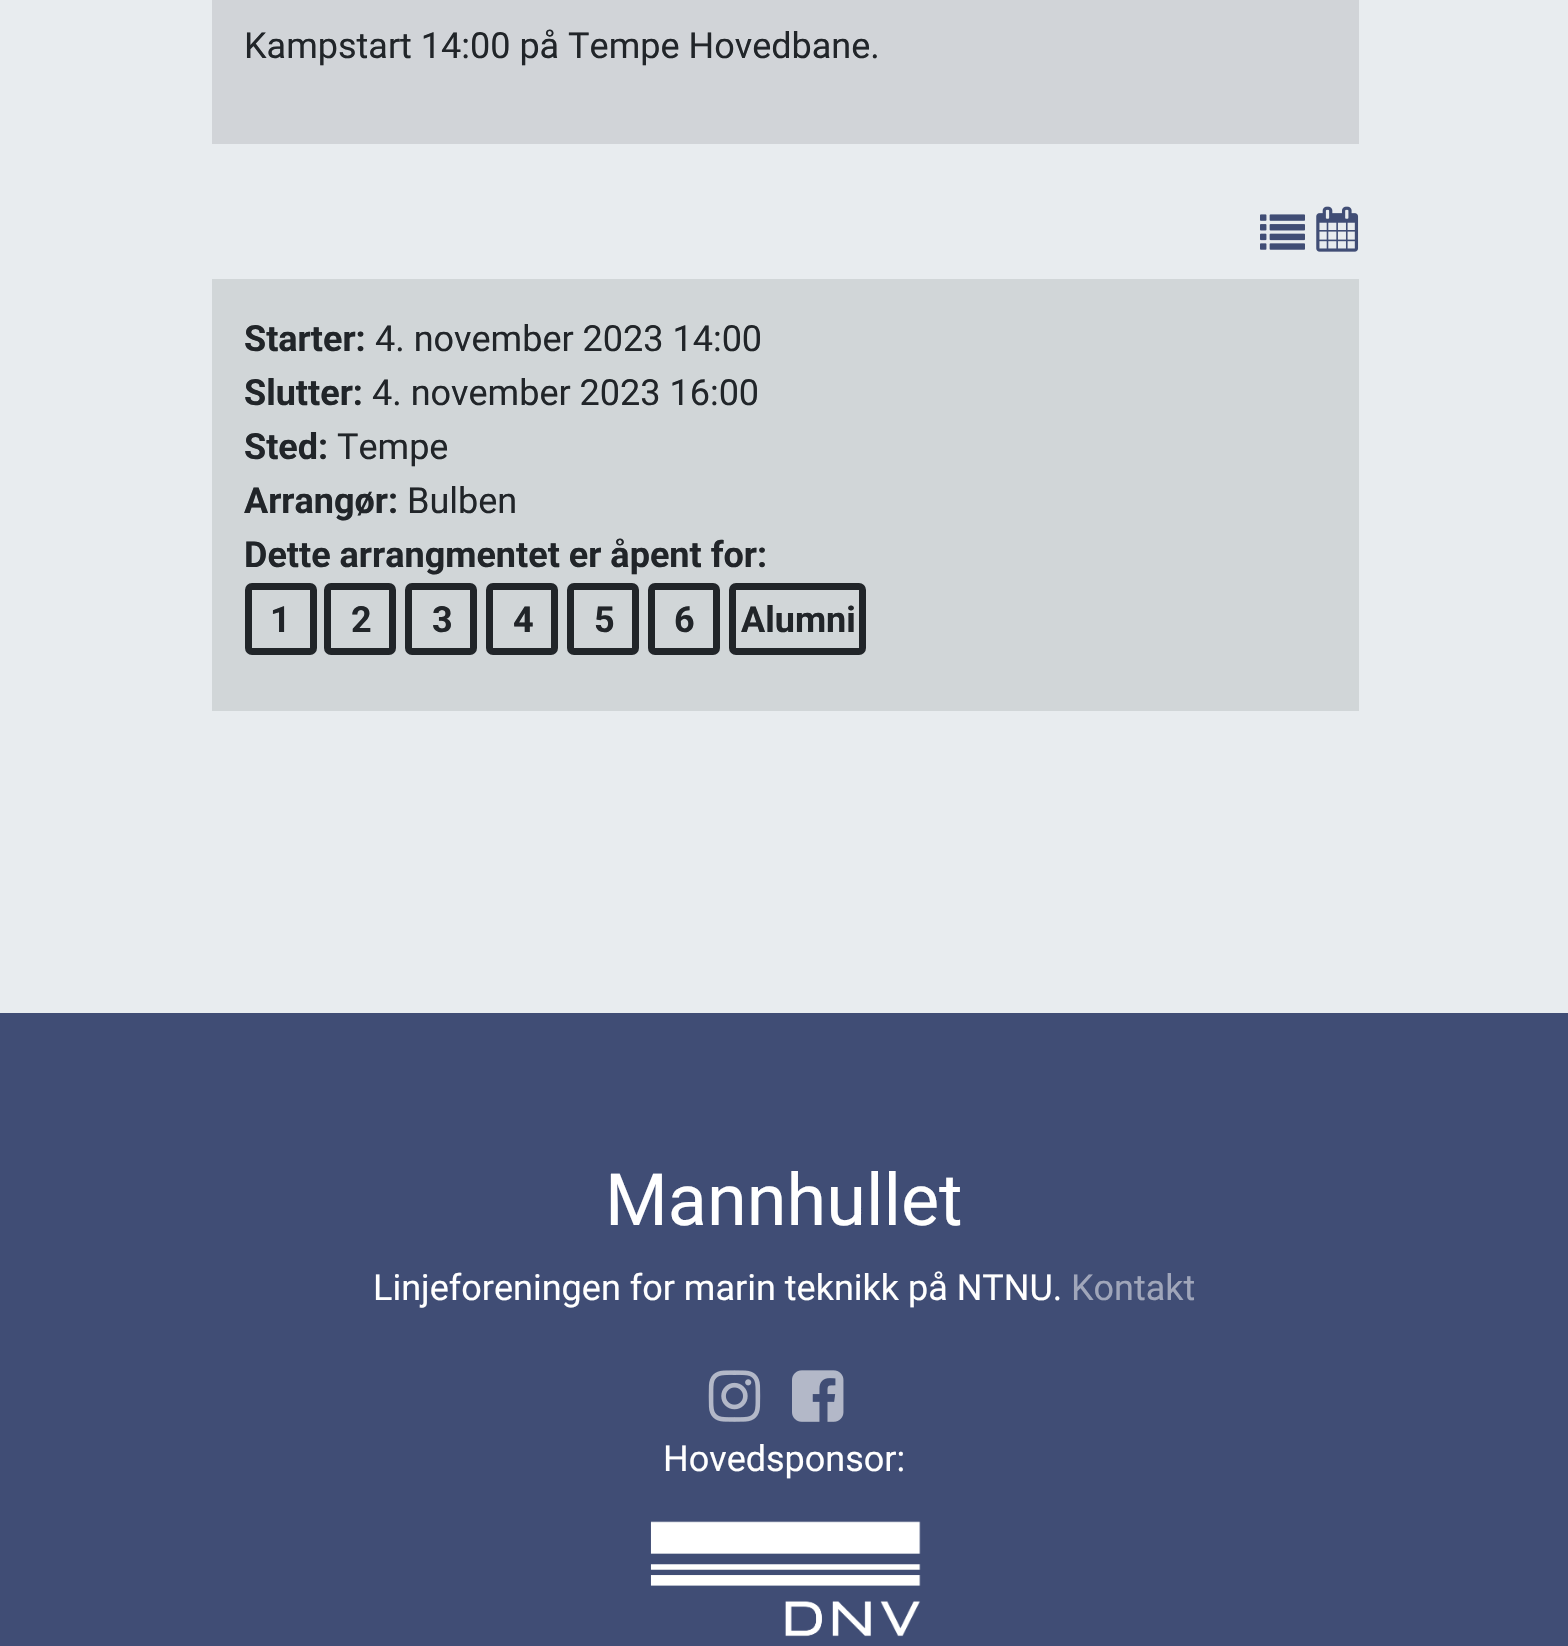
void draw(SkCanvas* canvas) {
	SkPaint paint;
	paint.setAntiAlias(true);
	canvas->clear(0xffe8ecef);
	paint.setColor(0xffd1d4d8);
	canvas->drawRect(SkRect::MakeXYWH(212, 0, 1147, 144), paint);
	SkFont f1(fontMgr->matchFamilyStyle("Roboto", SkFontStyle::Normal()), 36);
	f1.setSubpixel(true);
	paint.setColor(0xff212529);
	canvas->drawString("Kampstart 14:00 på Tempe Hovedbane.", 244, 58, f1, paint);
	canvas->drawImageRect(SkImages::DeferredFromEncodedData(SkData::MakeFromFileName("img1.png")), SkRect::MakeXYWH(1260, 214, 45, 36), SkSamplingOptions());
	canvas->drawImageRect(SkImages::DeferredFromEncodedData(SkData::MakeFromFileName("img2.png")), SkRect::MakeXYWH(1316, 206, 43, 46), SkSamplingOptions());
	paint.setColor(0xffd1d6d8);
	canvas->drawRect(SkRect::MakeXYWH(212, 279, 1147, 432), paint);
	SkFont f2(fontMgr->matchFamilyStyle("Roboto", SkFontStyle::Bold()), 36);
	f2.setSubpixel(true);
	paint.setColor(0xff212529);
	canvas->drawString("Starter:", 244, 351, f2, paint);
	canvas->drawString("4. november 2023 14:00", 375, 351, f1, paint);
	canvas->drawString("Slutter:", 244, 405, f2, paint);
	canvas->drawString("4. november 2023 16:00", 372, 405, f1, paint);
	canvas->drawString("Sted:", 244, 459, f2, paint);
	canvas->drawString("Tempe", 337, 459, f1, paint);
	canvas->drawString("Arrangør:", 244, 513, f2, paint);
	canvas->drawString("Bulben", 407, 513, f1, paint);
	canvas->drawString("Dette arrangmentet er åpent for:", 244, 567, f2, paint);
	paint.setStroke(true);
	paint.setStrokeWidth(7);
	canvas->drawRoundRect(SkRect::MakeXYWH(248.5, 586.5, 65, 65), 3.5, 3.5, paint);
	paint.setStroke(false);
	canvas->drawString("1", 270, 632, f2, paint);
	paint.setStroke(true);
	canvas->drawRoundRect(SkRect::MakeXYWH(327.5, 586.5, 65, 65), 3.5, 3.5, paint);
	paint.setStroke(false);
	canvas->drawString("2", 351, 632, f2, paint);
	paint.setStroke(true);
	canvas->drawRoundRect(SkRect::MakeXYWH(408.5, 586.5, 65, 65), 3.5, 3.5, paint);
	paint.setStroke(false);
	canvas->drawString("3", 432, 632, f2, paint);
	paint.setStroke(true);
	canvas->drawRoundRect(SkRect::MakeXYWH(489.5, 586.5, 65, 65), 3.5, 3.5, paint);
	paint.setStroke(false);
	canvas->drawString("4", 513, 632, f2, paint);
	paint.setStroke(true);
	canvas->drawRoundRect(SkRect::MakeXYWH(570.5, 586.5, 65, 65), 3.5, 3.5, paint);
	paint.setStroke(false);
	canvas->drawString("5", 594, 632, f2, paint);
	paint.setStroke(true);
	canvas->drawRoundRect(SkRect::MakeXYWH(651.5, 586.5, 65, 65), 3.5, 3.5, paint);
	paint.setStroke(false);
	canvas->drawString("6", 674, 632, f2, paint);
	paint.setStroke(true);
	canvas->drawRoundRect(SkRect::MakeXYWH(732.5, 586.5, 130, 65), 3.5, 3.5, paint);
	paint.setStroke(false);
	canvas->drawString("Alumni", 741, 632, f2, paint);
	paint.setColor(0xff404d75);
	canvas->drawRect(SkRect::MakeXYWH(0, 1013, 1568, 633), paint);
	SkFont f3(fontMgr->matchFamilyStyle("Roboto", SkFontStyle::Normal()), 72);
	f3.setSubpixel(true);
	paint.setColor(0xffffffff);
	canvas->drawString("Mannhullet", 605, 1225, f3, paint);
	canvas->drawString("Linjeforeningen for marin teknikk på NTNU.", 373, 1300, f1, paint);
	paint.setColor(0xffa0a6ba);
	canvas->drawString("Kontakt", 1071, 1300, f1, paint);
	canvas->drawImageRect(SkImages::DeferredFromEncodedData(SkData::MakeFromFileName("img3.png")), SkRect::MakeXYWH(708, 1370, 53, 52), SkSamplingOptions());
	canvas->drawImageRect(SkImages::DeferredFromEncodedData(SkData::MakeFromFileName("img4.png")), SkRect::MakeXYWH(792, 1370, 52, 52), SkSamplingOptions());
	paint.setColor(0xffffffff);
	canvas->drawString("Hovedsponsor:", 663, 1471, f1, paint);
	canvas->drawImageRect(SkImages::DeferredFromEncodedData(SkData::MakeFromFileName("img5.png")), SkRect::MakeXYWH(650, 1521, 271, 116), SkSamplingOptions());
}
